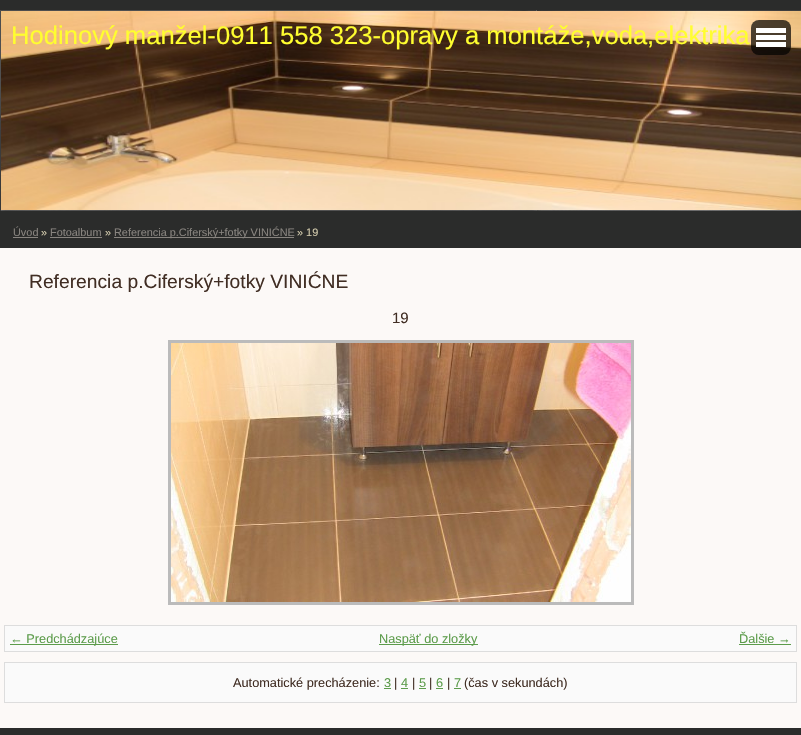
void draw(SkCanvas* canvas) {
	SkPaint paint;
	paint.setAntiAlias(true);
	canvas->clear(0xff2b2c2b);
	canvas->drawImageRect(SkImages::DeferredFromEncodedData(SkData::MakeFromFileName("img1.png")), SkRect::MakeXYWH(0, 10, 801, 201), SkSamplingOptions());
	canvas->drawImageRect(SkImages::DeferredFromEncodedData(SkData::MakeFromFileName("img2.png")), SkRect::MakeXYWH(1, 11, 800, 199), SkSamplingOptions());
	SkFont f1(fontMgr->matchFamilyStyle("Liberation Sans", SkFontStyle::Normal()), 25.6);
	f1.setSubpixel(true);
	paint.setColor(0xfffffe2f);
	canvas->drawString("Hodinový manžel-0911 558 323-opravy a montáže,voda,elektrika", 11, 44, f1, paint);
	paint.setColor(0xb3000000);
	canvas->drawRoundRect(SkRect::MakeXYWH(751, 20, 40, 35), 8, 8, paint);
	paint.setColor(0xffffffff);
	canvas->drawRect(SkRect::MakeXYWH(756, 28, 30, 5), paint);
	canvas->drawRect(SkRect::MakeXYWH(756, 35, 30, 5), paint);
	canvas->drawRect(SkRect::MakeXYWH(756, 42, 30, 5), paint);
	SkFont f2(fontMgr->matchFamilyStyle("Liberation Sans", SkFontStyle::Normal()), 10.9);
	f2.setSubpixel(true);
	paint.setColor(0xff88847f);
	canvas->drawString("Úvod", 13, 236, f2, paint);
	canvas->drawRect(SkRect::MakeXYWH(13, 237, 25, 1), paint);
	paint.setColor(0xffd0c8aa);
	canvas->drawString("»", 41, 236, f2, paint);
	paint.setColor(0xff88847f);
	canvas->drawString("Fotoalbum", 50, 236, f2, paint);
	canvas->drawRect(SkRect::MakeXYWH(50, 237, 52, 1), paint);
	paint.setColor(0xffd0c8aa);
	canvas->drawString("»", 105, 236, f2, paint);
	paint.setColor(0xff88847f);
	canvas->drawRect(SkRect::MakeXYWH(114, 237, 180, 1), paint);
	canvas->drawString("Referencia p.Ciferský+fotky VINIĆNE", 114, 236, f2, paint);
	paint.setColor(0xffd0c8aa);
	canvas->drawString("» 19", 297, 236, f2, paint);
	paint.setColor(0xfffcf9f7);
	canvas->drawRect(SkRect::MakeXYWH(0, 248, 801, 480), paint);
	SkFont f3(fontMgr->matchFamilyStyle("Liberation Sans", SkFontStyle::Normal()), 19.25);
	f3.setSubpixel(true);
	paint.setColor(0xff412e24);
	canvas->drawString("Referencia p.Ciferský+fotky VINIĆNE", 29, 288, f3, paint);
	SkFont f4(fontMgr->matchFamilyStyle("Liberation Sans", SkFontStyle::Normal()), 15);
	f4.setSubpixel(true);
	canvas->drawString("19", 392, 323, f4, paint);
	paint.setStroke(true);
	paint.setStrokeWidth(3);
	paint.setColor(0xffbbbbbb);
	canvas->drawRect(SkRect::MakeXYWH(169.5, 341.5, 463, 262), paint);
	canvas->drawImageRect(SkImages::DeferredFromEncodedData(SkData::MakeFromFileName("img3.png")), SkRect::MakeXYWH(171, 343, 460, 259), SkSamplingOptions());
	paint.setStroke(false);
	paint.setColor(0xfffafafa);
	canvas->drawRect(SkRect::MakeXYWH(4.5, 625.5, 792, 26), paint);
	paint.setStroke(true);
	paint.setStrokeWidth(1);
	paint.setColor(0xffdddddd);
	canvas->drawRect(SkRect::MakeXYWH(4.5, 625.5, 792, 26), paint);
	paint.setStroke(false);
	paint.setColor(0xff5c9c4b);
	canvas->drawRect(SkRect::MakeXYWH(10, 644, 108, 1), paint);
	SkFont f5(fontMgr->matchFamilyStyle("Liberation Sans", SkFontStyle::Normal()), 12.75);
	f5.setSubpixel(true);
	canvas->drawString("← Predchádzajúce", 10, 643, f5, paint);
	canvas->drawRect(SkRect::MakeXYWH(379, 644, 99, 1), paint);
	canvas->drawString("Naspäť do zložky", 379, 643, f5, paint);
	canvas->drawString("Ďalšie →", 739, 643, f5, paint);
	canvas->drawRect(SkRect::MakeXYWH(739, 644, 52, 1), paint);
	paint.setColor(0xfffafafa);
	canvas->drawRect(SkRect::MakeXYWH(4.5, 662.5, 792, 40), paint);
	paint.setStroke(true);
	paint.setColor(0xffdddddd);
	canvas->drawRect(SkRect::MakeXYWH(4.5, 662.5, 792, 40), paint);
	paint.setStroke(false);
	paint.setColor(0xff412e24);
	canvas->drawString("Automatické precházenie:", 233, 687, f5, paint);
	paint.setColor(0xff5c9c4b);
	canvas->drawString("3", 384, 687, f5, paint);
	canvas->drawRect(SkRect::MakeXYWH(384, 688, 7, 1), paint);
	paint.setColor(0xff412e24);
	canvas->drawString("|", 394, 687, f5, paint);
	paint.setColor(0xff5c9c4b);
	canvas->drawString("4", 401, 687, f5, paint);
	canvas->drawRect(SkRect::MakeXYWH(401, 688, 7, 1), paint);
	paint.setColor(0xff412e24);
	canvas->drawString("|", 412, 687, f5, paint);
	paint.setColor(0xff5c9c4b);
	canvas->drawString("5", 419, 687, f5, paint);
	canvas->drawRect(SkRect::MakeXYWH(419, 688, 7, 1), paint);
	paint.setColor(0xff412e24);
	canvas->drawString("|", 429, 687, f5, paint);
	paint.setColor(0xff5c9c4b);
	canvas->drawString("6", 436, 687, f5, paint);
	canvas->drawRect(SkRect::MakeXYWH(436, 688, 7, 1), paint);
	paint.setColor(0xff412e24);
	canvas->drawString("|", 447, 687, f5, paint);
	paint.setColor(0xff5c9c4b);
	canvas->drawString("7", 454, 687, f5, paint);
	canvas->drawRect(SkRect::MakeXYWH(454, 688, 7, 1), paint);
	paint.setColor(0xff412e24);
	canvas->drawString("(čas v sekundách)", 464, 687, f5, paint);
}
